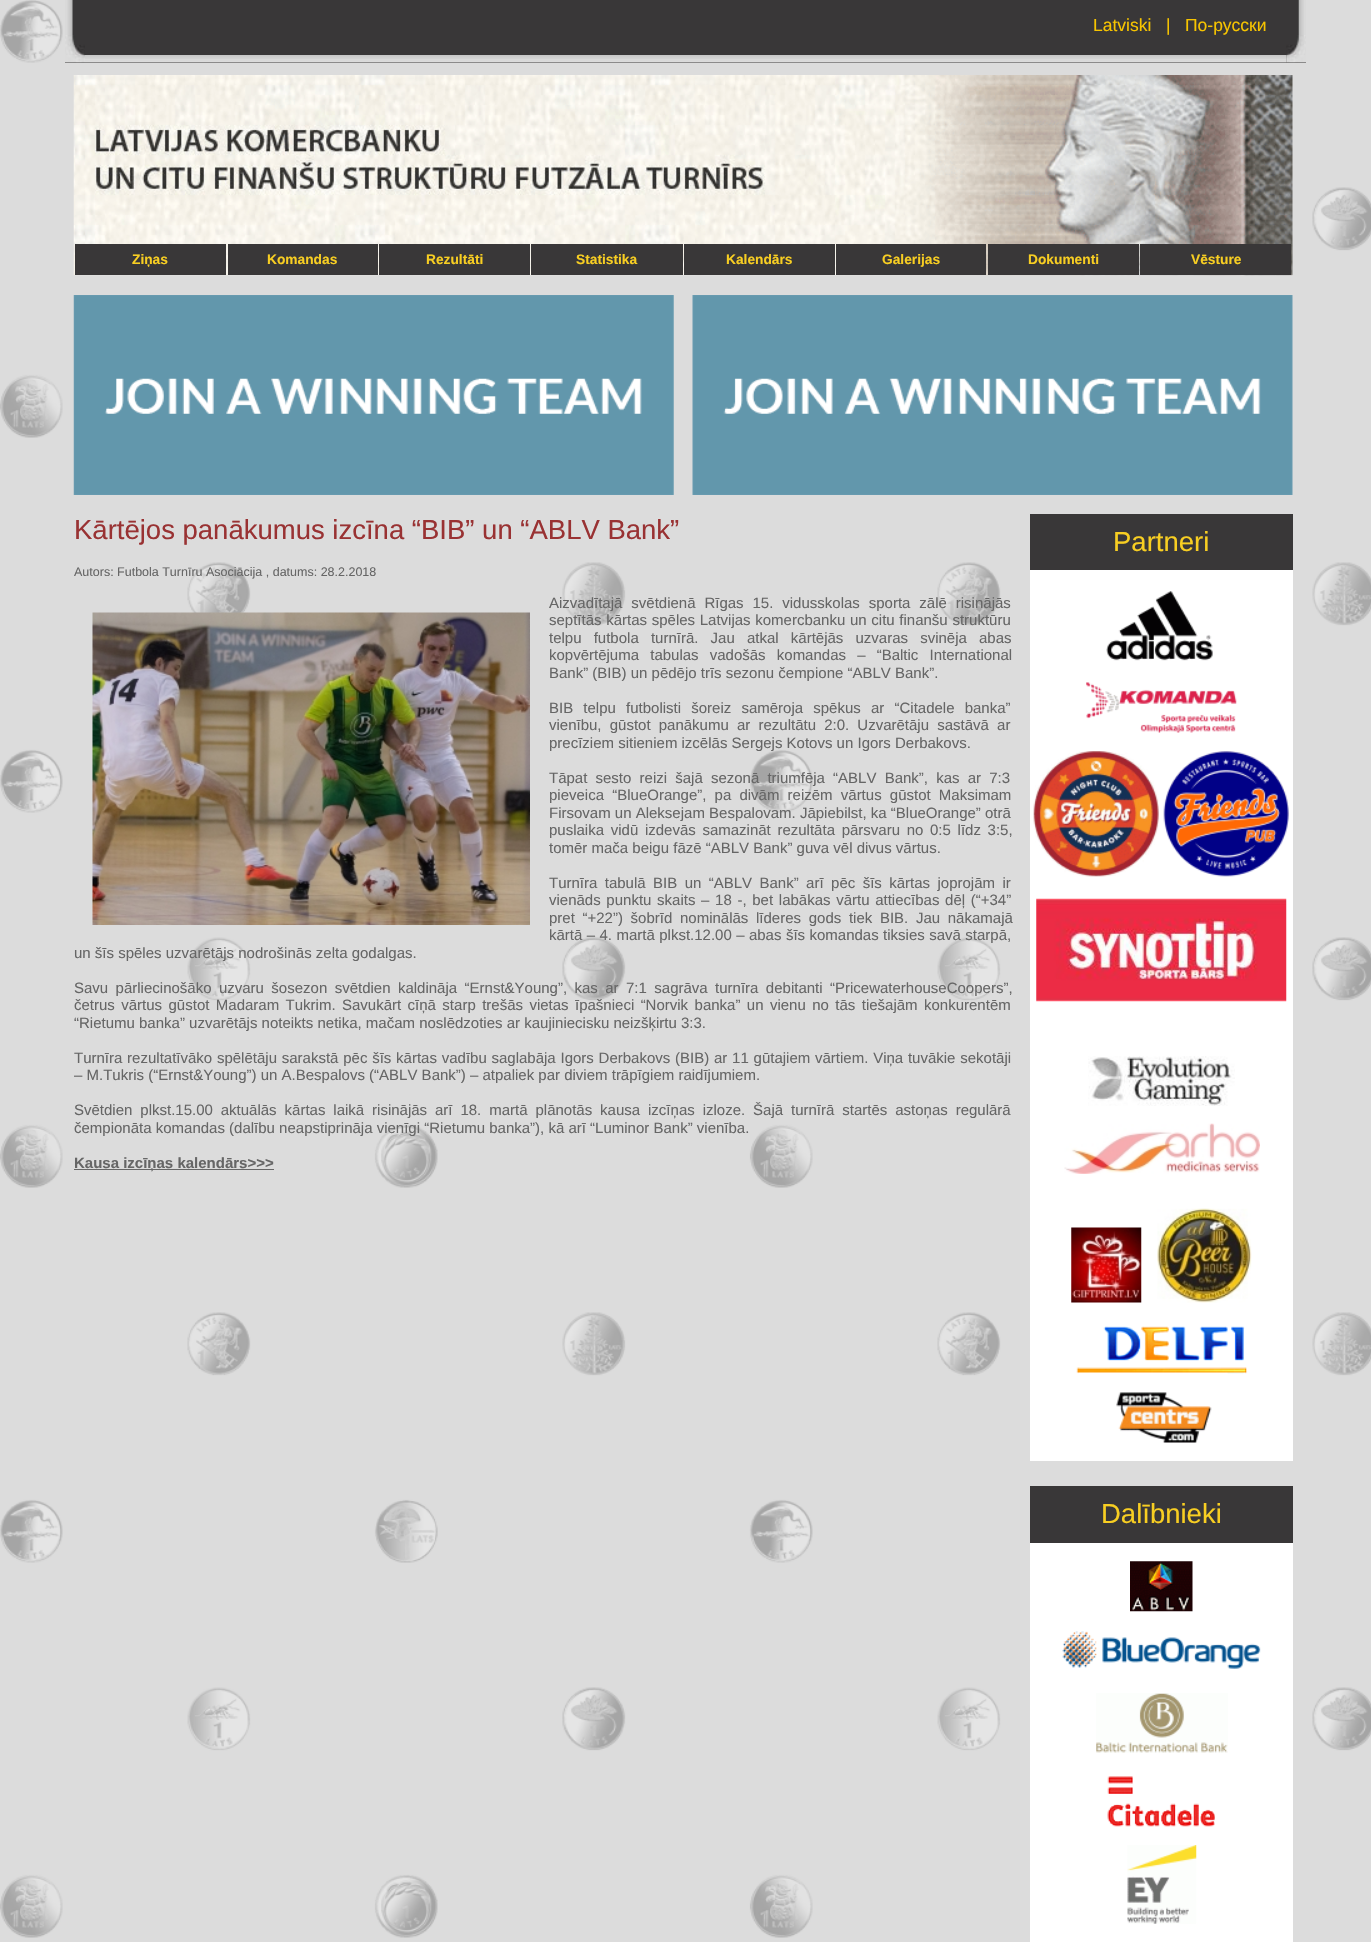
void draw(SkCanvas* canvas) {
	SkPaint paint;
	paint.setAntiAlias(true);
	auto spacedText = [&](const char* s, float x, float y, const SkFont& font, const SkPaint& ink, float letter, float word) {
		std::vector<SkGlyphID> glyphs(font.countText(s, strlen(s), SkTextEncoding::kUTF8));
		std::vector<float> xs(glyphs.size());
		font.textToGlyphs(s, strlen(s), SkTextEncoding::kUTF8, glyphs);
		font.getXPos(glyphs, xs, x);
		float extra = 0;
		for (size_t i = 0; i < glyphs.size(); i++) {
			xs[i] += extra;
			extra += letter + word * (glyphs[i] == font.unicharToGlyph(' '));
		}
		canvas->drawTextBlob(SkTextBlob::MakeFromPosHGlyphs(glyphs, xs, y, font), 0, 0, ink);
	};
	canvas->clear(0xffffffff);
	canvas->drawImageRect(SkImages::DeferredFromEncodedData(SkData::MakeFromFileName("img1.png")), SkRect::MakeXYWH(0, 0, 1371, 1942), SkSamplingOptions());
	paint.setColor(0xff393738);
	canvas->drawRect(SkRect::MakeXYWH(65, 0, 1241, 63), paint);
	canvas->drawImageRect(SkImages::DeferredFromEncodedData(SkData::MakeFromFileName("img2.png")), SkRect::MakeXYWH(65, 0, 8, 35), SkSamplingOptions());
	SkFont f1(fontMgr->matchFamilyStyle("Liberation Sans", SkFontStyle::Normal()), 17.5);
	f1.setSubpixel(true);
	paint.setColor(0xfff7c400);
	canvas->drawString("Latviski", 1093, 31, f1, paint);
	canvas->drawString("|", 1166, 31, f1, paint);
	canvas->drawString("По-русски", 1185, 31, f1, paint);
	canvas->drawImageRect(SkImages::DeferredFromEncodedData(SkData::MakeFromFileName("img3.png")), SkRect::MakeXYWH(1298, 0, 8, 35), SkSamplingOptions());
	canvas->drawImageRect(SkImages::DeferredFromEncodedData(SkData::MakeFromFileName("img4.png")), SkRect::MakeXYWH(65, 35, 20, 28), SkSamplingOptions());
	canvas->drawImageRect(SkImages::DeferredFromEncodedData(SkData::MakeFromFileName("img6.png")), SkRect::MakeXYWH(85, 55, 1202, 8), SkSamplingOptions());
	canvas->drawImageRect(SkImages::DeferredFromEncodedData(SkData::MakeFromFileName("img5.png")), SkRect::MakeXYWH(1286, 35, 20, 28), SkSamplingOptions());
	canvas->drawImageRect(SkImages::DeferredFromEncodedData(SkData::MakeFromFileName("img7.png")), SkRect::MakeXYWH(73, 75, 1220, 201), SkSamplingOptions());
	paint.setColor(0xff393738);
	canvas->drawRect(SkRect::MakeXYWH(75, 244, 151, 31), paint);
	SkFont f2(fontMgr->matchFamilyStyle("Liberation Sans", SkFontStyle::Bold()), 13.75);
	f2.setSubpixel(true);
	paint.setColor(0xfff8ce22);
	canvas->drawString("Ziņas", 132, 264, f2, paint);
	paint.setColor(0xff393738);
	canvas->drawRect(SkRect::MakeXYWH(228, 244, 150, 31), paint);
	paint.setColor(0xfff8ce22);
	canvas->drawString("Komandas", 267, 264, f2, paint);
	paint.setColor(0xff393738);
	canvas->drawRect(SkRect::MakeXYWH(379, 244, 151, 31), paint);
	paint.setColor(0xfff8ce22);
	canvas->drawString("Rezultāti", 426, 264, f2, paint);
	paint.setColor(0xff393738);
	canvas->drawRect(SkRect::MakeXYWH(531, 244, 152, 31), paint);
	paint.setColor(0xfff8ce22);
	canvas->drawString("Statistika", 576, 264, f2, paint);
	paint.setColor(0xff393738);
	canvas->drawRect(SkRect::MakeXYWH(684, 244, 151, 31), paint);
	paint.setColor(0xfff8ce22);
	canvas->drawString("Kalendārs", 726, 264, f2, paint);
	paint.setColor(0xff393738);
	canvas->drawRect(SkRect::MakeXYWH(836, 244, 150, 31), paint);
	paint.setColor(0xfff8ce22);
	canvas->drawString("Galerijas", 882, 264, f2, paint);
	paint.setColor(0xff393738);
	canvas->drawRect(SkRect::MakeXYWH(988, 244, 151, 31), paint);
	paint.setColor(0xfff8ce22);
	canvas->drawString("Dokumenti", 1028, 264, f2, paint);
	paint.setColor(0xff393738);
	canvas->drawRect(SkRect::MakeXYWH(1140, 244, 151, 31), paint);
	paint.setColor(0xfff8ce22);
	canvas->drawString("Vēsture", 1191, 264, f2, paint);
	canvas->drawImageRect(SkImages::DeferredFromEncodedData(SkData::MakeFromFileName("img8.png")), SkRect::MakeXYWH(73, 295, 601, 200), SkSamplingOptions());
	canvas->drawImageRect(SkImages::DeferredFromEncodedData(SkData::MakeFromFileName("img9.png")), SkRect::MakeXYWH(692, 295, 601, 200), SkSamplingOptions());
	SkFont f3(fontMgr->matchFamilyStyle("Liberation Sans", SkFontStyle::Normal()), 27.5);
	f3.setSubpixel(true);
	paint.setColor(0xff993233);
	canvas->drawString("Kārtējos panākumus izcīna “BIB” un “ABLV Bank”", 74, 539, f3, paint);
	SkFont f4(fontMgr->matchFamilyStyle("Liberation Sans", SkFontStyle::Normal()), 12.5);
	f4.setSubpixel(true);
	paint.setColor(0xff666666);
	canvas->drawString("Autors: Futbola Turnīru Asociācija , datums: 28.2.2018", 74, 576, f4, paint);
	SkFont f5(fontMgr->matchFamilyStyle("Liberation Sans", SkFontStyle::Normal()), 15);
	f5.setSubpixel(true);
	spacedText("Aizvadītajā svētdienā Rīgas 15. vidusskolas sporta zālē risinājās", 549, 608, f5, paint, 0, 4.75);
	canvas->drawImageRect(SkImages::DeferredFromEncodedData(SkData::MakeFromFileName("img10.png")), SkRect::MakeXYWH(92, 612, 438, 313), SkSamplingOptions());
	spacedText("septītās kārtas spēles Latvijas komercbanku un citu finanšu struktūru", 549, 625, f5, paint, 0, 0.5);
	spacedText("telpu futbola turnīrā. Jau atkal kārtējās uzvaras svinēja abas", 549, 643, f5, paint, 0, 8);
	spacedText("kopvērtējuma tabulas vadošās komandas – “Baltic International", 549, 660, f5, paint, 0, 7);
	canvas->drawString("Bank” (BIB) un pēdējo trīs sezonu čempione “ABLV Bank”.", 549, 678, f5, paint);
	spacedText("BIB telpu futbolisti šoreiz samēroja spēkus ar “Citadele banka”", 549, 713, f5, paint, 0, 6);
	spacedText("vienību, gūstot panākumu ar rezultātu 2:0. Uzvarētāju sastāvā ar", 549, 730, f5, paint, 0, 4);
	canvas->drawString("precīziem sitieniem izcēlās Sergejs Kotovs un Igors Derbakovs.", 549, 748, f5, paint);
	spacedText("Tāpat sesto reizi šajā sezonā triumfēja “ABLV Bank”, kas ar 7:3", 549, 783, f5, paint, 0, 4);
	spacedText("pieveica “BlueOrange”, pa divām reizēm vārtus gūstot Maksimam", 549, 800, f5, paint, 0, 4);
	canvas->drawString("Firsovam un Aleksejam Bespalovam. Jāpiebilst, ka “BlueOrange” otrā", 549, 818, f5, paint);
	spacedText("puslaika vidū izdevās samazināt rezultāta pārsvaru no 0:5 līdz 3:5,", 549, 835, f5, paint, 0, 2.5);
	canvas->drawString("tomēr mača beigu fāzē “ABLV Bank” guva vēl divus vārtus.", 549, 853, f5, paint);
	spacedText("Turnīra tabulā BIB un “ABLV Bank” arī pēc šīs kārtas joprojām ir", 549, 888, f5, paint, 0, 3.25);
	spacedText("vienāds punktu skaits – 18 -, bet labākas vārtu attiecības dēļ (“+34”", 549, 905, f5, paint, 0, 1.5);
	spacedText("pret “+22”) šobrīd nominālās līderes gods tiek BIB. Jau nākamajā", 549, 923, f5, paint, 0, 3.5);
	spacedText("kārtā – 4. martā plkst.12.00 – abas šīs komandas tiksies savā starpā,", 549, 940, f5, paint, 0, 0.25);
	canvas->drawString("un šīs spēles uzvarētājs nodrošinās zelta godalgas.", 74, 958, f5, paint);
	spacedText("Savu pārliecinošāko uzvaru šosezon svētdien kaldināja “Ernst&Young”, kas ar 7:1 sagrāva turnīra debitanti “PricewaterhouseCoopers”,", 74, 993, f5, paint, 0, 3.25);
	spacedText("četrus vārtus gūstot Madaram Tukrim. Savukārt cīņā starp trešās vietas īpašnieci “Norvik banka” un vienu no tās tiešajām konkurentēm", 74, 1010, f5, paint, 0, 2.25);
	canvas->drawString("“Rietumu banka” uzvarētājs noteikts netika, mačam noslēdzoties ar kaujiniecisku neizšķirtu 3:3.", 74, 1028, f5, paint);
	spacedText("Turnīra rezultatīvāko spēlētāju sarakstā pēc šīs kārtas vadību saglabāja Igors Derbakovs (BIB) ar 11 gūtajiem vārtiem. Viņa tuvākie sekotāji", 74, 1063, f5, paint, 0, 0.6);
	canvas->drawString("– M.Tukris (“Ernst&Young”) un A.Bespalovs (“ABLV Bank”) – atpaliek par diviem trāpīgiem raidījumiem.", 74, 1080, f5, paint);
	spacedText("Svētdien plkst.15.00 aktuālās kārtas laikā risinājās arī 18. martā plānotās kausa izcīņas izloze. Šajā turnīrā startēs astoņas regulārā", 74, 1115, f5, paint, 0, 3.75);
	canvas->drawString("čempionāta komandas (dalību neapstiprināja vienīgi “Rietumu banka”), kā arī “Luminor Bank” vienība.", 74, 1133, f5, paint);
	canvas->drawRect(SkRect::MakeXYWH(74, 1169, 200, 1), paint);
	SkFont f6(fontMgr->matchFamilyStyle("Liberation Sans", SkFontStyle::Bold()), 15);
	f6.setSubpixel(true);
	canvas->drawString("Kausa izcīņas kalendārs>>>", 74, 1168, f6, paint);
	paint.setColor(0xff393738);
	canvas->drawRect(SkRect::MakeXYWH(1030, 514, 263, 56), paint);
	paint.setColor(0xfff8ce22);
	canvas->drawString("Partneri", 1113, 551, f3, paint);
	paint.setColor(0xffffffff);
	canvas->drawRect(SkRect::MakeXYWH(1030, 570, 263, 891), paint);
	canvas->drawImageRect(SkImages::DeferredFromEncodedData(SkData::MakeFromFileName("img11.png")), SkRect::MakeXYWH(1106, 591, 107, 70), SkSamplingOptions());
	canvas->drawImageRect(SkImages::DeferredFromEncodedData(SkData::MakeFromFileName("img12.png")), SkRect::MakeXYWH(1086, 682, 151, 51), SkSamplingOptions());
	canvas->drawImageRect(SkImages::DeferredFromEncodedData(SkData::MakeFromFileName("img13.png")), SkRect::MakeXYWH(1033, 751, 126, 126), SkSamplingOptions());
	canvas->drawImageRect(SkImages::DeferredFromEncodedData(SkData::MakeFromFileName("img14.png")), SkRect::MakeXYWH(1163, 751, 126, 126), SkSamplingOptions());
	canvas->drawImageRect(SkImages::DeferredFromEncodedData(SkData::MakeFromFileName("img15.png")), SkRect::MakeXYWH(1036, 898, 251, 104), SkSamplingOptions());
	canvas->drawImageRect(SkImages::DeferredFromEncodedData(SkData::MakeFromFileName("img16.png")), SkRect::MakeXYWH(1088, 1056, 147, 50), SkSamplingOptions());
	canvas->drawImageRect(SkImages::DeferredFromEncodedData(SkData::MakeFromFileName("img17.png")), SkRect::MakeXYWH(1064, 1123, 196, 51), SkSamplingOptions());
	canvas->drawImageRect(SkImages::DeferredFromEncodedData(SkData::MakeFromFileName("img18.png")), SkRect::MakeXYWH(1071, 1227, 71, 76), SkSamplingOptions());
	canvas->drawImageRect(SkImages::DeferredFromEncodedData(SkData::MakeFromFileName("img19.png")), SkRect::MakeXYWH(1157, 1208, 95, 95), SkSamplingOptions());
	canvas->drawImageRect(SkImages::DeferredFromEncodedData(SkData::MakeFromFileName("img20.png")), SkRect::MakeXYWH(1076, 1326, 172, 48), SkSamplingOptions());
	canvas->drawImageRect(SkImages::DeferredFromEncodedData(SkData::MakeFromFileName("img21.png")), SkRect::MakeXYWH(1116, 1392, 96, 51), SkSamplingOptions());
	paint.setColor(0xff393738);
	canvas->drawRect(SkRect::MakeXYWH(1030, 1486, 263, 57), paint);
	paint.setColor(0xfff8ce22);
	canvas->drawString("Dalībnieki", 1101, 1523, f3, paint);
	paint.setColor(0xffffffff);
	canvas->drawRect(SkRect::MakeXYWH(1030, 1543, 263, 399), paint);
	canvas->drawImageRect(SkImages::DeferredFromEncodedData(SkData::MakeFromFileName("img22.png")), SkRect::MakeXYWH(1130, 1561, 63, 51), SkSamplingOptions());
	canvas->drawImageRect(SkImages::DeferredFromEncodedData(SkData::MakeFromFileName("img23.png")), SkRect::MakeXYWH(1062, 1631, 199, 38), SkSamplingOptions());
	canvas->drawImageRect(SkImages::DeferredFromEncodedData(SkData::MakeFromFileName("img24.png")), SkRect::MakeXYWH(1096, 1693, 132, 60), SkSamplingOptions());
	canvas->drawImageRect(SkImages::DeferredFromEncodedData(SkData::MakeFromFileName("img25.png")), SkRect::MakeXYWH(1107, 1776, 108, 51), SkSamplingOptions());
	canvas->drawImageRect(SkImages::DeferredFromEncodedData(SkData::MakeFromFileName("img26.png")), SkRect::MakeXYWH(1127, 1845, 70, 79), SkSamplingOptions());
}
